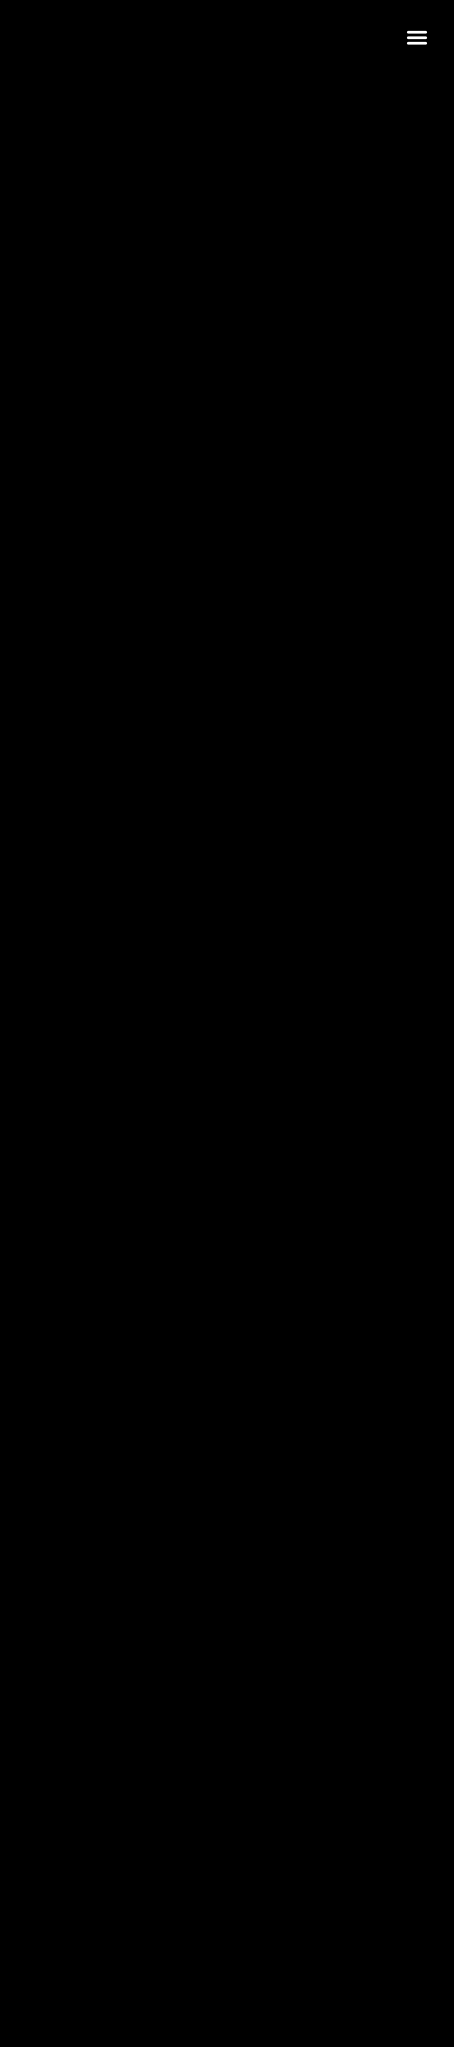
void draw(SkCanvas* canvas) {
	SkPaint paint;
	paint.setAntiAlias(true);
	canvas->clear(0xff000000);
	canvas->drawImageRect(SkImages::DeferredFromEncodedData(SkData::MakeFromFileName("img1.png")), SkRect::MakeXYWH(406, 30, 22, 15), SkSamplingOptions());
}
